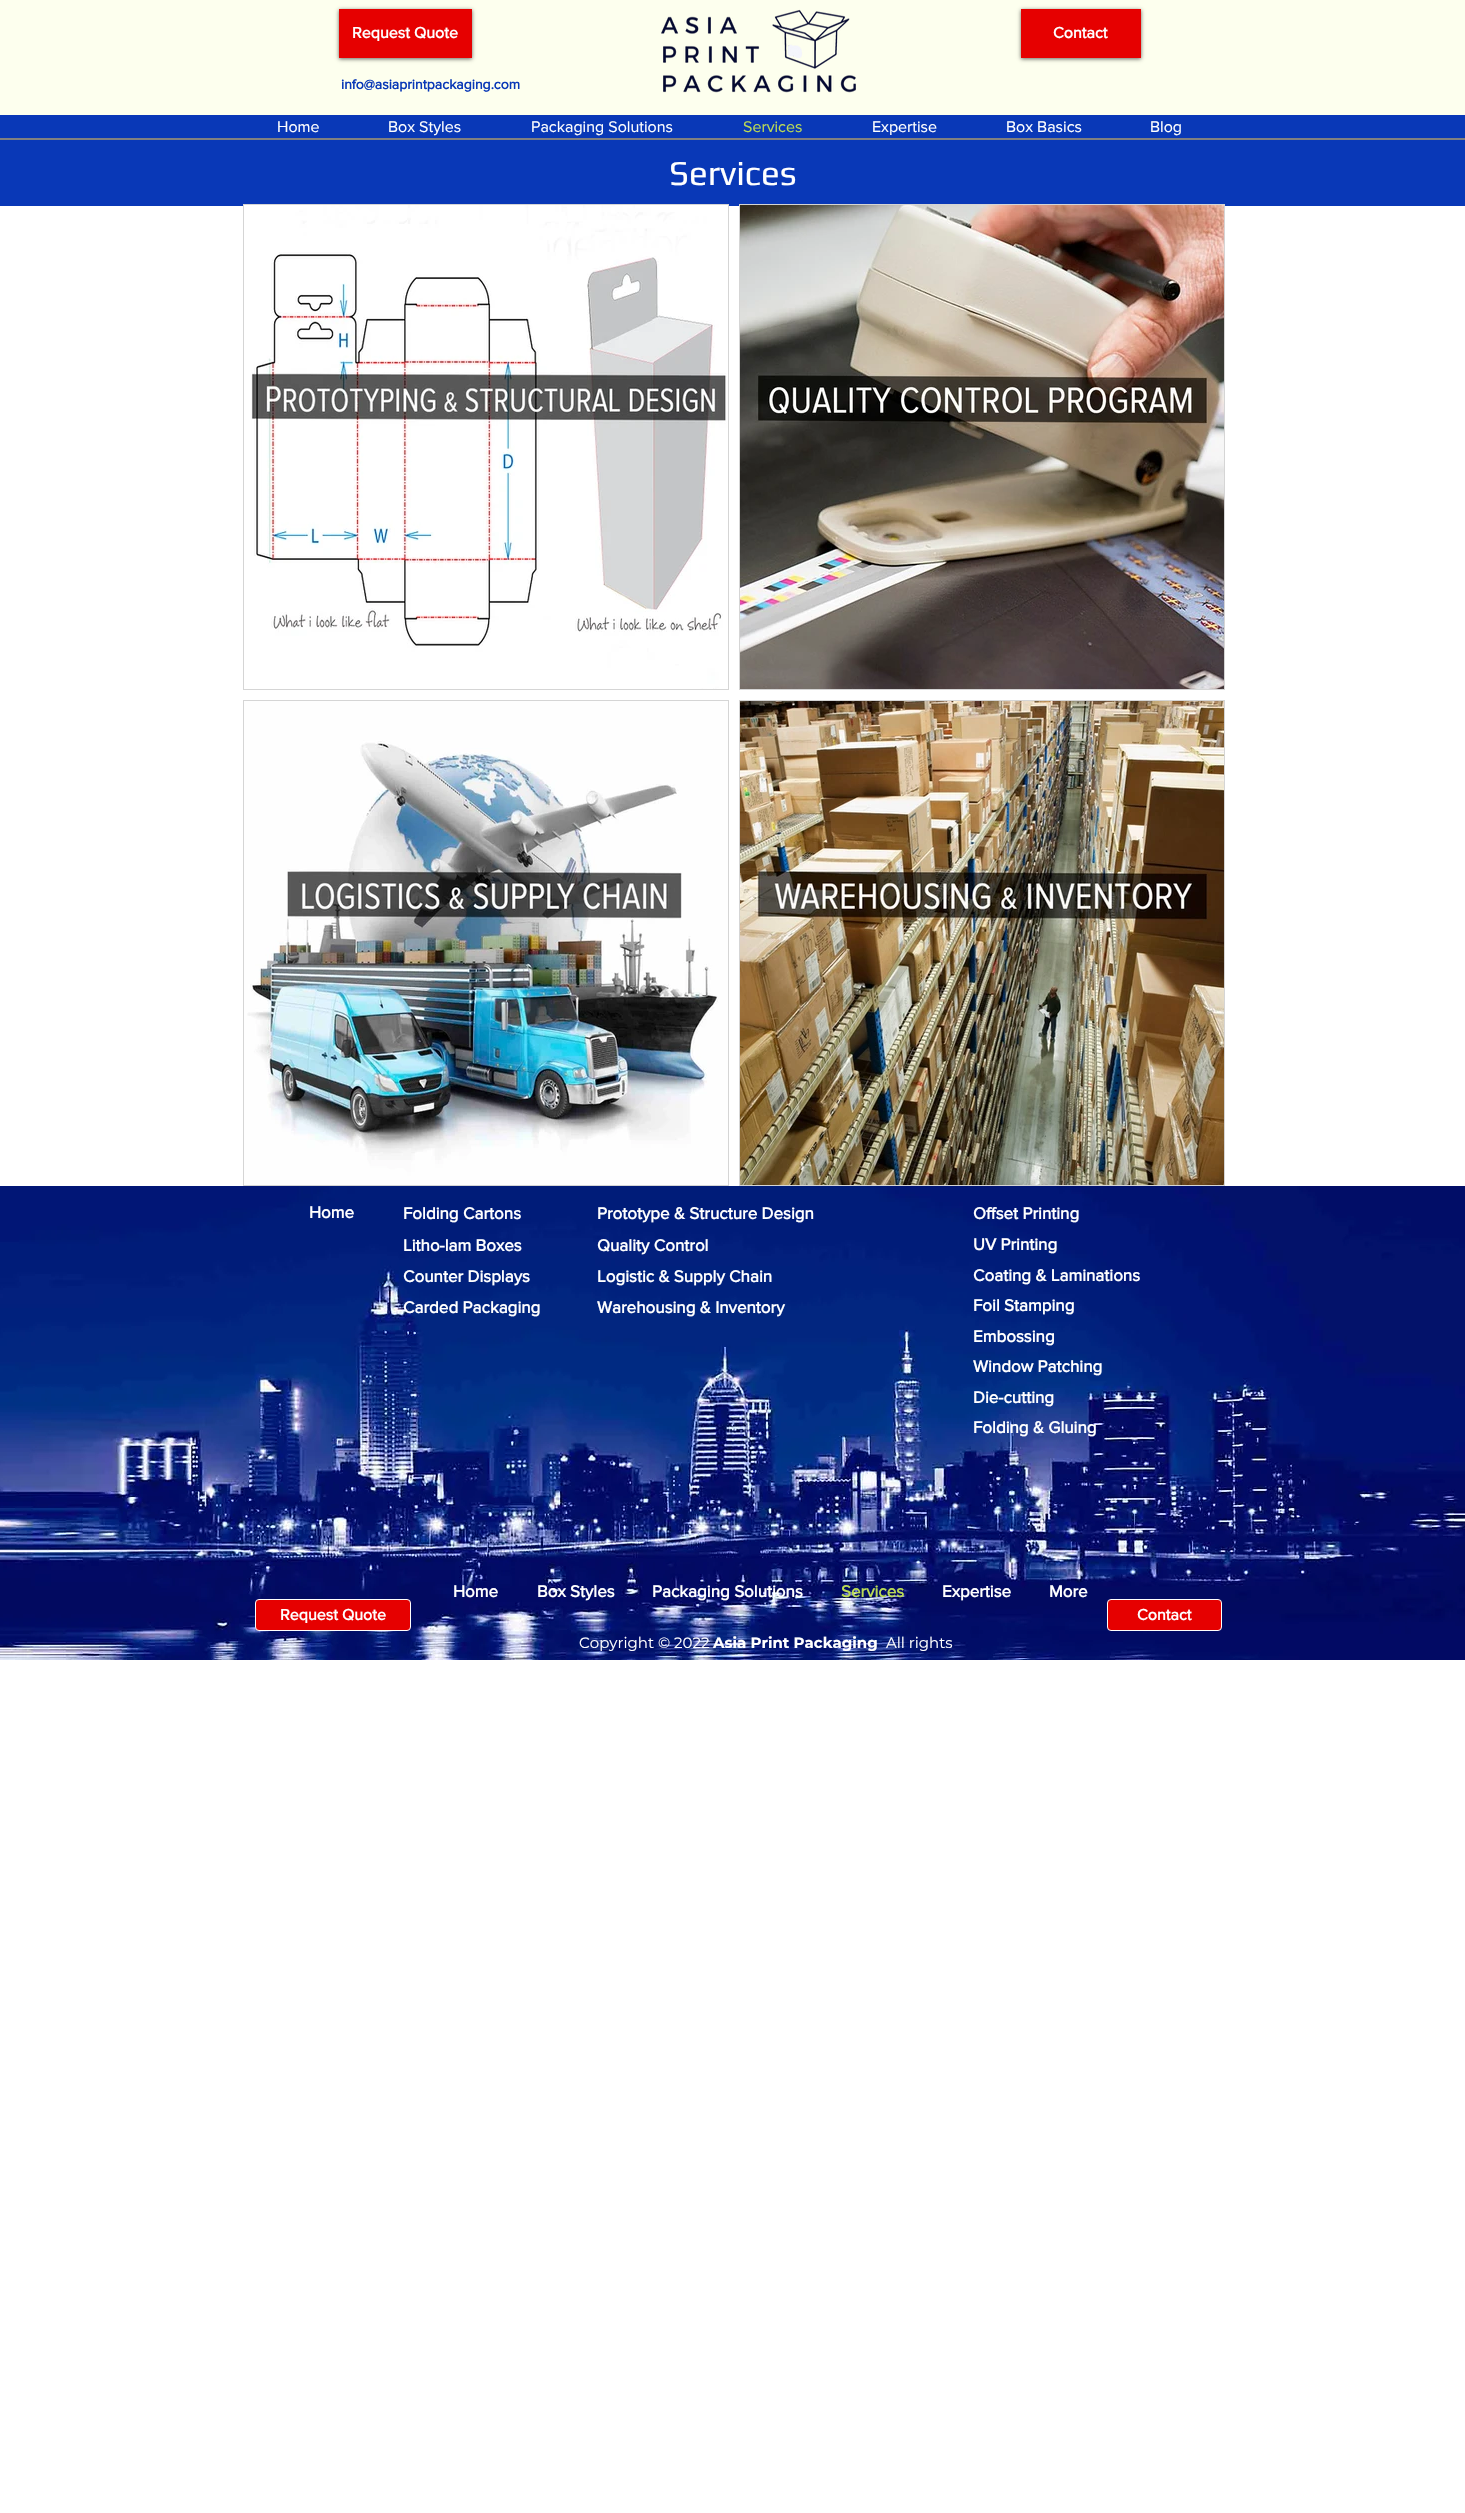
void draw(SkCanvas* canvas) {
	SkPaint paint;
	paint.setAntiAlias(true);
	canvas->clear(0xffffffff);
	paint.setColor(0xfffdffee);
	canvas->drawRect(SkRect::MakeXYWH(0, 0, 1465, 115), paint);
	paint.setColor(0xff808080);
	canvas->drawRect(SkRect::MakeXYWH(0, 138, 1465, 2), paint);
	paint.setColor(0x99000000);
	paint.setMaskFilter(SkMaskFilter::MakeBlur(kNormal_SkBlurStyle, 2));
	canvas->drawRect(SkRect::MakeXYWH(339, 10, 133, 49), paint);
	paint.setMaskFilter(nullptr);
	paint.setColor(0xffe60000);
	canvas->drawRect(SkRect::MakeXYWH(339, 9, 133, 49), paint);
	SkFont f1(fontMgr->matchFamilyStyle("Proxima Nova", SkFontStyle::Bold()), 16);
	f1.setSubpixel(true);
	paint.setColor(0xffffffff);
	canvas->drawString("Request Quote", 352, 38, f1, paint);
	canvas->drawImageRect(SkImages::DeferredFromEncodedData(SkData::MakeFromFileName("img1.png")), SkRect::MakeXYWH(661, 9, 195, 84), SkSamplingOptions());
	paint.setColor(0x99000000);
	paint.setMaskFilter(SkMaskFilter::MakeBlur(kNormal_SkBlurStyle, 2));
	canvas->drawRect(SkRect::MakeXYWH(1021, 10, 120, 49), paint);
	paint.setMaskFilter(nullptr);
	paint.setColor(0xffe60000);
	canvas->drawRect(SkRect::MakeXYWH(1021, 9, 120, 49), paint);
	paint.setColor(0xffffffff);
	canvas->drawString("Contact", 1053, 38, f1, paint);
	SkFont f2(fontMgr->matchFamilyStyle("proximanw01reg", SkFontStyle::Bold()), 14);
	f2.setSubpixel(true);
	paint.setColor(0xff0938b7);
	canvas->drawString("info@asiaprintpackaging.com", 341, 89, f2, paint);
	canvas->drawRect(SkRect::MakeXYWH(0, 115, 1465, 23), paint);
	SkFont f3(fontMgr->matchFamilyStyle("Proxima Nova", SkFontStyle::Normal()), 16);
	f3.setSubpixel(true);
	paint.setColor(0xffffffff);
	canvas->drawString("Home", 277, 132, f3, paint);
	canvas->drawString("Box Styles", 388, 132, f3, paint);
	canvas->drawString("Packaging Solutions", 531, 132, f3, paint);
	paint.setColor(0xffbada55);
	canvas->drawString("Services", 743, 132, f3, paint);
	paint.setColor(0xffffffff);
	canvas->drawString("Expertise", 872, 132, f3, paint);
	canvas->drawString("Box Basics", 1006, 132, f3, paint);
	canvas->drawString("Blog", 1150, 132, f3, paint);
	paint.setColor(0xff0938b7);
	canvas->drawRect(SkRect::MakeXYWH(0, 140, 1465, 66), paint);
	SkFont f4(fontMgr->matchFamilyStyle("Play", SkFontStyle::Normal()), 35);
	f4.setSubpixel(true);
	paint.setColor(0xffffffff);
	canvas->drawString("Services", 669, 185, f4, paint);
	paint.setStroke(true);
	paint.setStrokeWidth(1);
	paint.setColor(0xffd5d5d5);
	canvas->drawRect(SkRect::MakeXYWH(243.5, 204.5, 485, 485), paint);
	canvas->drawImageRect(SkImages::DeferredFromEncodedData(SkData::MakeFromFileName("img2.png")), SkRect::MakeXYWH(244, 205, 484, 484), SkSamplingOptions());
	canvas->drawRect(SkRect::MakeXYWH(739.5, 204.5, 485, 485), paint);
	canvas->drawImageRect(SkImages::DeferredFromEncodedData(SkData::MakeFromFileName("img3.png")), SkRect::MakeXYWH(740, 205, 484, 484), SkSamplingOptions());
	canvas->drawRect(SkRect::MakeXYWH(243.5, 700.5, 485, 485), paint);
	canvas->drawImageRect(SkImages::DeferredFromEncodedData(SkData::MakeFromFileName("img4.png")), SkRect::MakeXYWH(244, 701, 484, 484), SkSamplingOptions());
	canvas->drawRect(SkRect::MakeXYWH(739.5, 700.5, 485, 485), paint);
	canvas->drawImageRect(SkImages::DeferredFromEncodedData(SkData::MakeFromFileName("img5.png")), SkRect::MakeXYWH(740, 701, 484, 484), SkSamplingOptions());
	canvas->drawImageRect(SkImages::DeferredFromEncodedData(SkData::MakeFromFileName("img6.png")), SkRect::MakeXYWH(0, 1186, 1465, 474), SkSamplingOptions());
	SkFont f5(fontMgr->matchFamilyStyle("Proxima Nova", SkFontStyle::Bold()), 17);
	f5.setSubpixel(true);
	paint.setStroke(false);
	paint.setColor(0xffffffff);
	canvas->drawString("Home", 309, 1218, f5, paint);
	canvas->drawString("Folding Cartons", 403, 1219, f5, paint);
	canvas->drawString("Prototype & Structure Design", 597, 1219, f5, paint);
	canvas->drawString("Offset Printing", 973, 1219, f5, paint);
	canvas->drawString("Litho-lam Boxes", 403, 1251, f5, paint);
	canvas->drawString("Quality Control", 597, 1251, f5, paint);
	canvas->drawString("UV Printing", 973, 1250, f5, paint);
	canvas->drawString("Counter Displays", 403, 1282, f5, paint);
	canvas->drawString("Logistic & Supply Chain", 597, 1282, f5, paint);
	canvas->drawString("Coating & Laminations", 973, 1281, f5, paint);
	canvas->drawString("Carded Packaging", 403, 1313, f5, paint);
	canvas->drawString("Warehousing & Inventory", 597, 1313, f5, paint);
	canvas->drawString("Foil Stamping", 973, 1311, f5, paint);
	canvas->drawString("Embossing", 973, 1342, f5, paint);
	canvas->drawString("Window Patching", 973, 1372, f5, paint);
	canvas->drawString("Die-cutting", 973, 1403, f5, paint);
	canvas->drawString("Folding & Gluing", 973, 1433, f5, paint);
	canvas->drawString("Home", 453, 1597, f5, paint);
	canvas->drawString("Box Styles", 537, 1597, f5, paint);
	canvas->drawString("Packaging Solutions", 652, 1597, f5, paint);
	paint.setColor(0xffbada55);
	canvas->drawString("Services", 841, 1597, f5, paint);
	paint.setColor(0xffffffff);
	canvas->drawString("Expertise", 942, 1597, f5, paint);
	canvas->drawString("More", 1049, 1597, f5, paint);
	paint.setColor(0xffe60000);
	canvas->drawRoundRect(SkRect::MakeXYWH(255.5, 1599.5, 155, 31), 3.5, 3.5, paint);
	paint.setStroke(true);
	paint.setColor(0xfffffffe);
	canvas->drawRoundRect(SkRect::MakeXYWH(255.5, 1599.5, 155, 31), 3.5, 3.5, paint);
	SkFont f6(fontMgr->matchFamilyStyle("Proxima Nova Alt", SkFontStyle::Bold()), 16);
	f6.setSubpixel(true);
	paint.setStroke(false);
	paint.setColor(0xffffffff);
	canvas->drawString("Request Quote", 280, 1620, f6, paint);
	paint.setColor(0xffe60000);
	canvas->drawRoundRect(SkRect::MakeXYWH(1107.5, 1599.5, 114, 31), 3.5, 3.5, paint);
	paint.setStroke(true);
	paint.setColor(0xfffffffe);
	canvas->drawRoundRect(SkRect::MakeXYWH(1107.5, 1599.5, 114, 31), 3.5, 3.5, paint);
	paint.setStroke(false);
	paint.setColor(0xffffffff);
	canvas->drawString("Contact", 1137, 1620, f1, paint);
	SkFont f7(fontMgr->matchFamilyStyle("Montserrat", SkFontStyle::Normal()), 15);
	f7.setSubpixel(true);
	canvas->drawString("Copyright © 2022", 579, 1648, f7, paint);
	SkFont f8(fontMgr->matchFamilyStyle("Montserrat", SkFontStyle::Bold()), 15);
	f8.setSubpixel(true);
	canvas->drawString("Asia Print Packaging", 713, 1648, f8, paint);
	canvas->drawString("All rights", 886, 1648, f7, paint);
}
